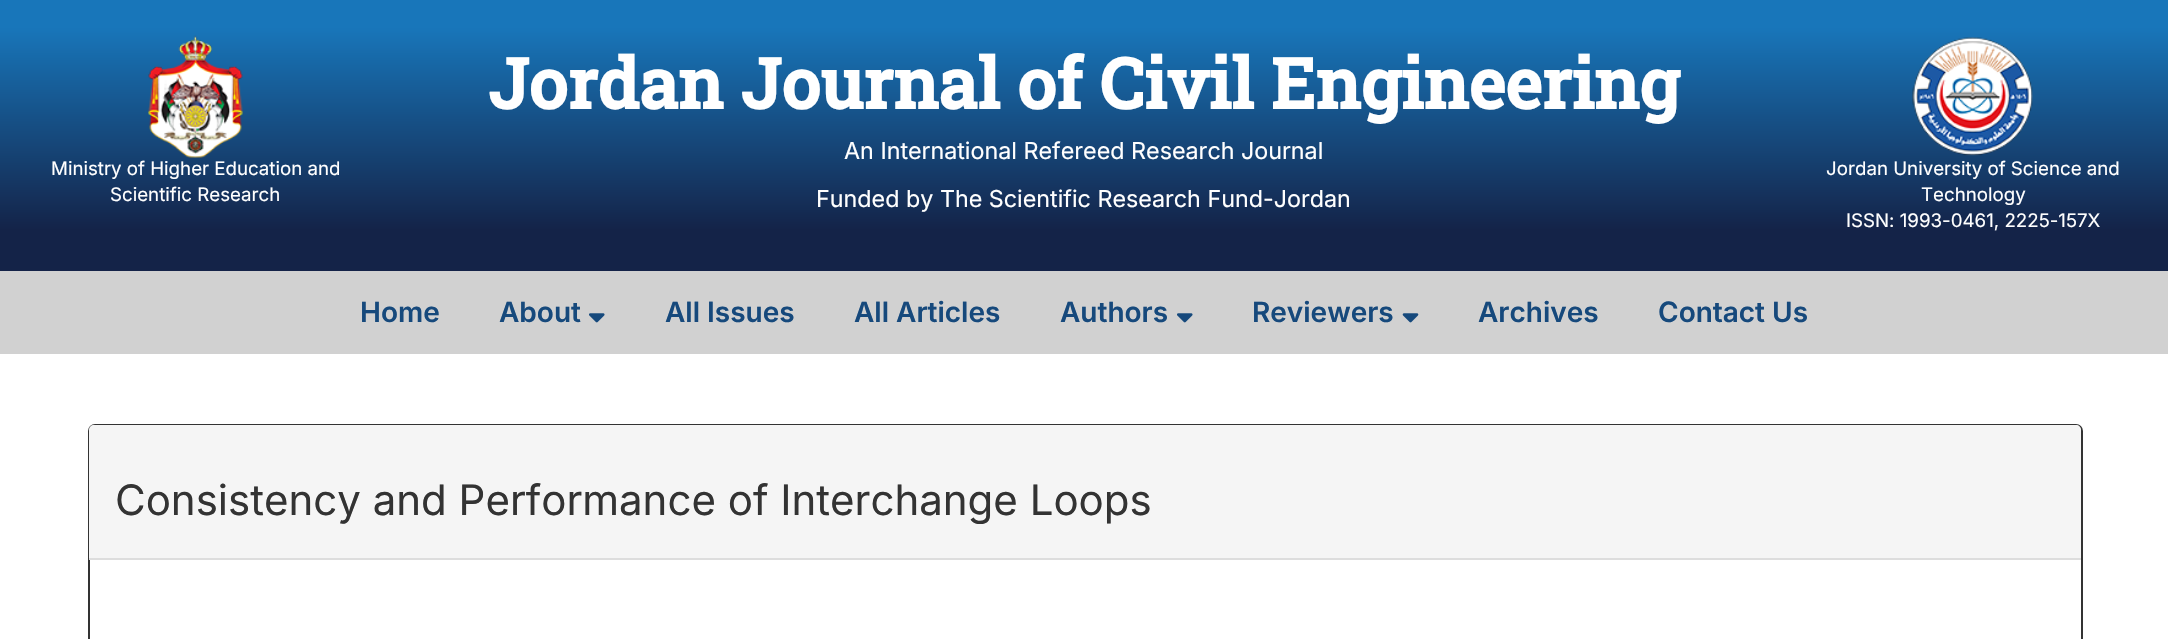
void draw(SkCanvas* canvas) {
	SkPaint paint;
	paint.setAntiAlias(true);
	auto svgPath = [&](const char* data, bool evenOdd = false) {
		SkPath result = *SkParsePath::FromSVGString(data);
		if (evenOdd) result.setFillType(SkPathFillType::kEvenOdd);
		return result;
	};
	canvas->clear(0xffffffff);
	{
		const SkColor colors[] = {0xff1876ba, 0xff142348};
		const float stops[] = {0.1, 0.85};
		const SkPoint ends[] = {{1084, 0}, {1084, 271}};
		paint.setShader(SkGradientShader::MakeLinear(ends, colors, stops, 2, SkTileMode::kClamp));
		paint.setAlpha(255);
	}
	canvas->drawRect(SkRect::MakeXYWH(0, 0, 2168, 271), paint);
	canvas->drawImageRect(SkImages::DeferredFromEncodedData(SkData::MakeFromFileName("img1.png")), SkRect::MakeXYWH(148, 35, 95, 123), SkSamplingOptions());
	SkFont f1(fontMgr->matchFamilyStyle("Inter", SkFontStyle::Normal()), 18.7);
	f1.setSubpixel(true);
	paint.setShader(nullptr);
	paint.setColor(0xffffffff);
	canvas->drawString("Ministry of Higher Education and", 51, 175, f1, paint);
	canvas->drawString("Scientific Research", 110, 201, f1, paint);
	SkFont f2(fontMgr->matchFamilyStyle("Roboto Slab", SkFontStyle::Bold()), 70);
	f2.setSubpixel(true);
	canvas->drawString("Jordan Journal of Civil Engineering", 488, 109, f2, paint);
	SkFont f3(fontMgr->matchFamilyStyle("Inter", SkFontStyle::Normal()), 23.3);
	f3.setSubpixel(true);
	canvas->drawString("An International Refereed Research Journal", 844, 159, f3, paint);
	canvas->drawString("Funded by The Scientific Research Fund-Jordan", 816, 207, f3, paint);
	canvas->drawImageRect(SkImages::DeferredFromEncodedData(SkData::MakeFromFileName("img2.png")), SkRect::MakeXYWH(1912, 37, 121, 119), SkSamplingOptions());
	canvas->drawString("Jordan University of Science and", 1826, 175, f1, paint);
	canvas->drawString("Technology", 1921, 201, f1, paint);
	canvas->drawString("ISSN: 1993-0461, 2225-157X", 1846, 227, f1, paint);
	paint.setColor(0xffd1d1d1);
	canvas->drawRect(SkRect::MakeXYWH(0, 271, 2168, 83), paint);
	SkFont f4(fontMgr->matchFamilyStyle("Inter", SkFontStyle(600, SkFontStyle::kNormal_Width, SkFontStyle::kUpright_Slant)), 28);
	f4.setSubpixel(true);
	paint.setColor(0xff16497c);
	canvas->drawString("Home", 360, 322, f4, paint);
	canvas->drawString("About", 499, 322, f4, paint);
	canvas->drawImageRect(SkImages::DeferredFromEncodedData(SkData::MakeFromFileName("img3.png")), SkRect::MakeXYWH(589, 313, 16, 10), SkSamplingOptions());
	canvas->drawString("All Issues", 665, 322, f4, paint);
	canvas->drawString("All Articles", 854, 322, f4, paint);
	canvas->drawString("Authors", 1060, 322, f4, paint);
	canvas->drawImageRect(SkImages::DeferredFromEncodedData(SkData::MakeFromFileName("img3.png")), SkRect::MakeXYWH(1177, 313, 16, 10), SkSamplingOptions());
	canvas->drawString("Reviewers", 1252, 322, f4, paint);
	canvas->drawImageRect(SkImages::DeferredFromEncodedData(SkData::MakeFromFileName("img4.png")), SkRect::MakeXYWH(1402, 313, 17, 10), SkSamplingOptions());
	canvas->drawString("Archives", 1478, 322, f4, paint);
	canvas->drawString("Contact Us", 1658, 322, f4, paint);
	paint.setStroke(true);
	paint.setStrokeWidth(2);
	paint.setColor(0xff333333);
	canvas->drawRoundRect(SkRect::MakeXYWH(89, 425, 1993, 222), 6, 6, paint);
	paint.setStroke(false);
	paint.setColor(0xfff5f5f5);
	canvas->drawPath(svgPath("M94 425H2076C2079 425 2081 427 2081 430V560H89V430C89 427 91 425 94 425Z"), paint);
	paint.setColor(0xffdddddd);
	canvas->drawRect(SkRect::MakeXYWH(89, 558, 1992, 2), paint);
	SkFont f5(fontMgr->matchFamilyStyle("Inter", SkFontStyle::Normal()), 42);
	f5.setSubpixel(true);
	paint.setColor(0xff333333);
	canvas->drawString("Consistency and Performance of Interchange Loops", 115, 515, f5, paint);
}
